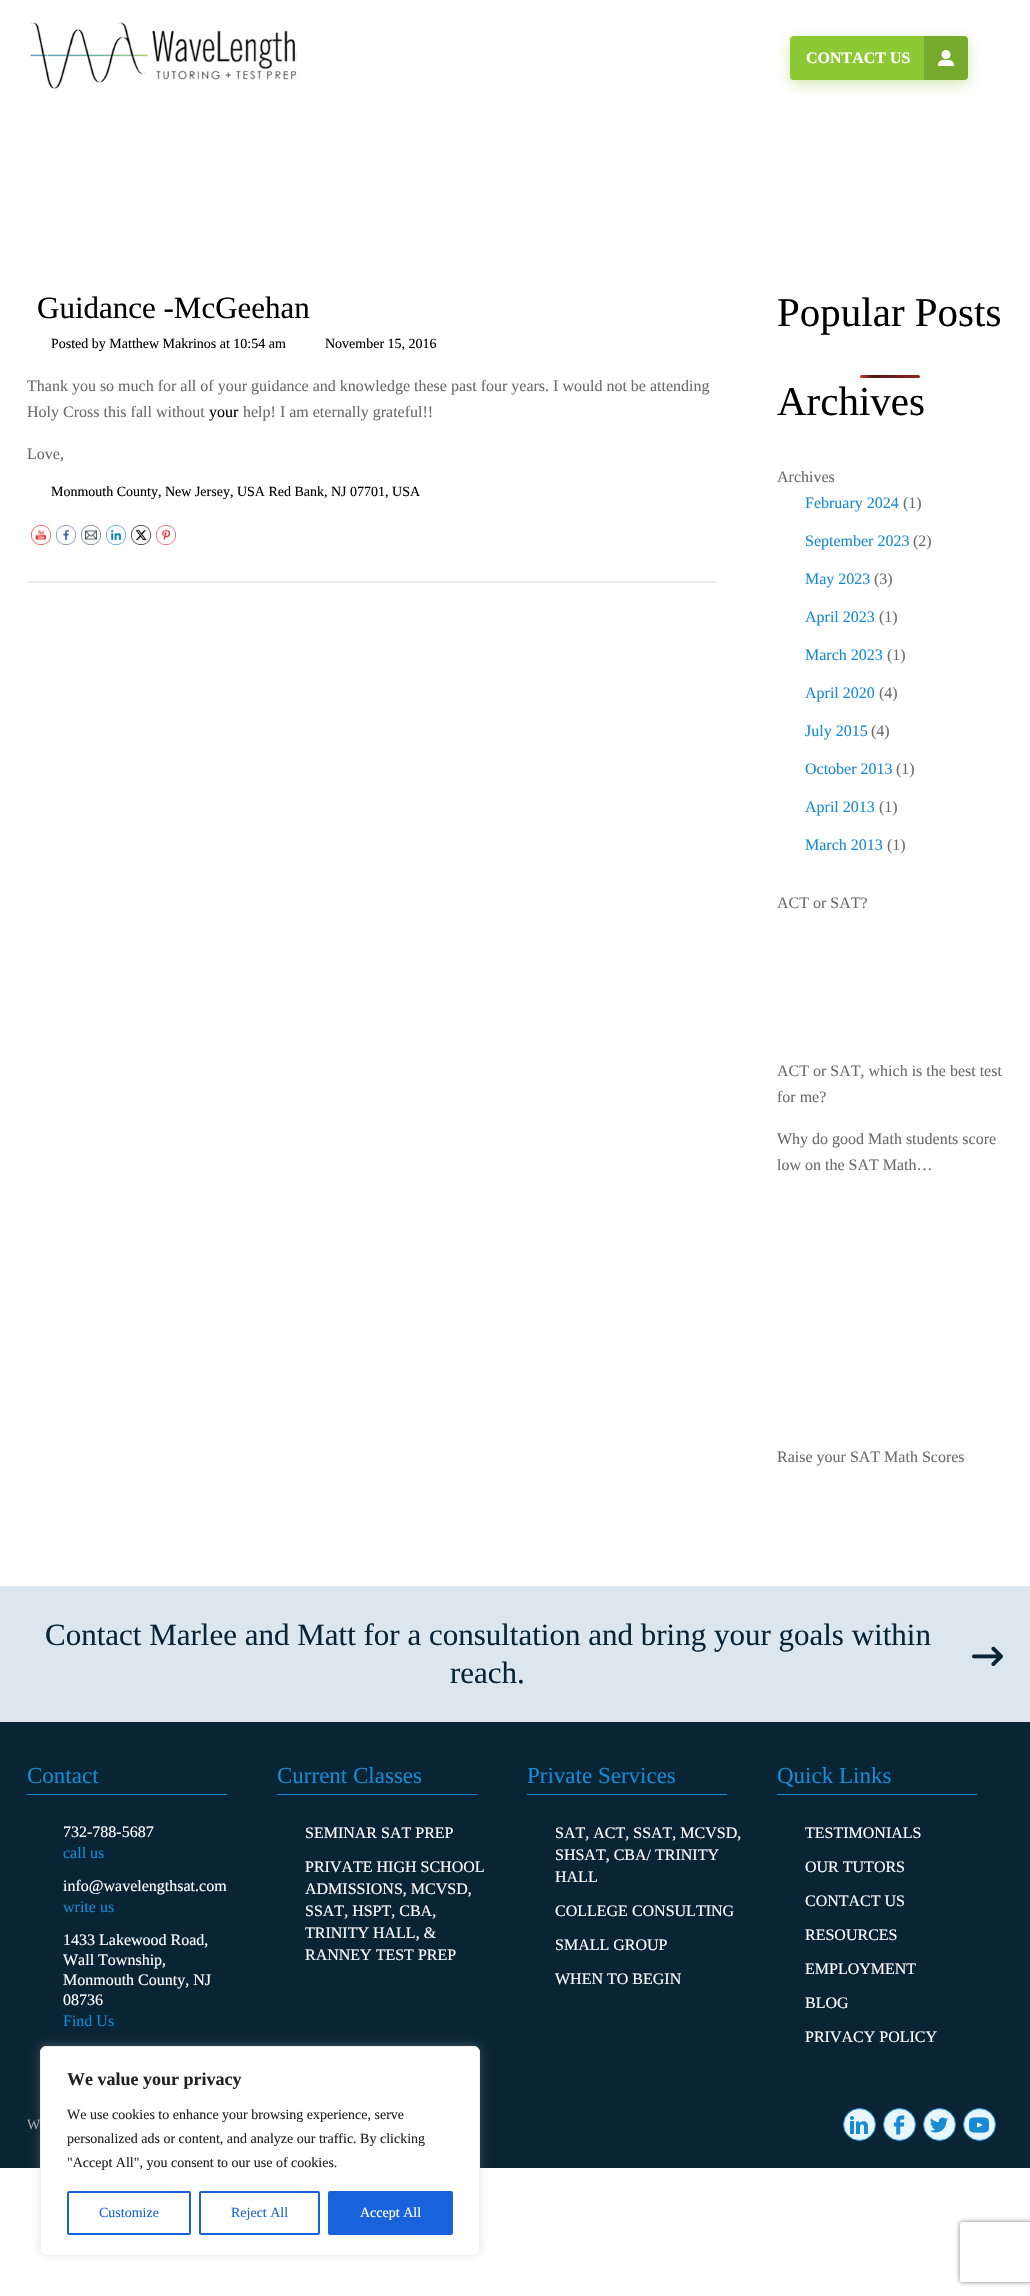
void draw(SkCanvas* canvas) {
	SkPaint paint;
	paint.setAntiAlias(true);
	auto svgPath = [&](const char* data, bool evenOdd = false) {
		SkPath result = *SkParsePath::FromSVGString(data);
		if (evenOdd) result.setFillType(SkPathFillType::kEvenOdd);
		return result;
	};
	canvas->clear(0xffffffff);
	canvas->drawImageRect(SkImages::DeferredFromEncodedData(SkData::MakeFromFileName("img1.png")), SkRect::MakeXYWH(30, 22, 267, 67), SkSamplingOptions());
	paint.setColor(0x668cc934);
	paint.setMaskFilter(SkMaskFilter::MakeBlur(kNormal_SkBlurStyle, 7));
	canvas->drawRoundRect(SkRect::MakeXYWH(790, 40, 178, 44), 4, 4, paint);
	paint.setMaskFilter(nullptr);
	paint.setColor(0xff8cc934);
	canvas->drawRoundRect(SkRect::MakeXYWH(790, 36, 178, 44), 4, 4, paint);
	SkFont f1(fontMgr->matchFamilyStyle("Liberation Serif", SkFontStyle::Bold()), 16);
	f1.setSubpixel(true);
	paint.setColor(0xffffffff);
	canvas->drawString("CONTACT US", 806, 63, f1, paint);
	paint.setColor(0x26000000);
	canvas->drawPath(svgPath("M924 36H964C966 36 968 38 968 40V76C968 78 966 80 964 80H924Z"), paint);
	canvas->drawImageRect(SkImages::DeferredFromEncodedData(SkData::MakeFromFileName("img2.png")), SkRect::MakeXYWH(938, 50, 16, 16), SkSamplingOptions());
	paint.setColor(0xffededed);
	canvas->drawRect(SkRect::MakeXYWH(27, 581, 690, 2), paint);
	SkFont f2(fontMgr->matchFamilyStyle("Liberation Serif", SkFontStyle::Normal()), 31);
	f2.setSubpixel(true);
	paint.setColor(0xff000000);
	canvas->drawString("Guidance -McGeehan", 37, 318, f2, paint);
	SkFont f3(fontMgr->matchFamilyStyle("Liberation Serif", SkFontStyle::Normal()), 14);
	f3.setSubpixel(true);
	canvas->drawString("Posted by Matthew Makrinos at 10:54 am", 51, 348, f3, paint);
	canvas->drawString("November 15, 2016", 325, 348, f3, paint);
	SkFont f4(fontMgr->matchFamilyStyle("Liberation Serif", SkFontStyle::Normal()), 16);
	f4.setSubpixel(true);
	paint.setColor(0xff6b6b6b);
	canvas->drawString("Thank you so much for all of your guidance and knowledge these past four years. I would not be attending", 27, 391, f4, paint);
	canvas->drawString("Holy Cross this fall without", 27, 417, f4, paint);
	paint.setColor(0xff000000);
	canvas->drawString("your", 209, 417, f4, paint);
	paint.setColor(0xff6b6b6b);
	canvas->drawString("help! I am eternally grateful!!", 243, 417, f4, paint);
	canvas->drawString("Love,", 27, 459, f4, paint);
	paint.setColor(0xff000000);
	canvas->drawString("Monmouth County, New Jersey, USA Red Bank, NJ 07701, USA", 51, 496, f3, paint);
	canvas->drawImageRect(SkImages::DeferredFromEncodedData(SkData::MakeFromFileName("img3.png")), SkRect::MakeXYWH(31, 525, 20, 20), SkSamplingOptions());
	canvas->drawImageRect(SkImages::DeferredFromEncodedData(SkData::MakeFromFileName("img4.png")), SkRect::MakeXYWH(56, 525, 20, 20), SkSamplingOptions());
	canvas->drawImageRect(SkImages::DeferredFromEncodedData(SkData::MakeFromFileName("img5.png")), SkRect::MakeXYWH(81, 525, 20, 20), SkSamplingOptions());
	canvas->drawImageRect(SkImages::DeferredFromEncodedData(SkData::MakeFromFileName("img6.png")), SkRect::MakeXYWH(106, 525, 20, 20), SkSamplingOptions());
	canvas->drawImageRect(SkImages::DeferredFromEncodedData(SkData::MakeFromFileName("img7.png")), SkRect::MakeXYWH(131, 525, 20, 20), SkSamplingOptions());
	canvas->drawImageRect(SkImages::DeferredFromEncodedData(SkData::MakeFromFileName("img8.png")), SkRect::MakeXYWH(156, 525, 20, 20), SkSamplingOptions());
	SkFont f5(fontMgr->matchFamilyStyle("Liberation Serif", SkFontStyle::Normal()), 41);
	f5.setSubpixel(true);
	canvas->drawString("Popular Posts", 777, 326, f5, paint);
	{
		const SkColor colors[] = {0xffdd3737, 0xff571313, 0xffdd3737};
		const float stops[] = {0, 0.1, 1};
		const SkPoint ends[] = {{860, 377}, {980, 377}};
		paint.setShader(SkGradientShader::MakeLinear(ends, colors, stops, 3, SkTileMode::kClamp));
		paint.setAlpha(255);
	}
	canvas->drawRoundRect(SkRect::MakeXYWH(860, 375, 60, 3), 1.5, 1.5, paint);
	paint.setShader(nullptr);
	paint.setColor(0xff000000);
	canvas->drawString("Archives", 777, 415, f5, paint);
	paint.setColor(0xff6b6b6b);
	canvas->drawString("Archives", 777, 482, f4, paint);
	paint.setColor(0xff168ad2);
	canvas->drawString("February 2024", 805, 508, f4, paint);
	paint.setColor(0xff6b6b6b);
	canvas->drawString("(1)", 903, 508, f4, paint);
	paint.setColor(0xff168ad2);
	canvas->drawString("September 2023", 805, 546, f4, paint);
	paint.setColor(0xff6b6b6b);
	canvas->drawString("(2)", 913, 546, f4, paint);
	paint.setColor(0xff168ad2);
	canvas->drawString("May 2023", 805, 584, f4, paint);
	paint.setColor(0xff6b6b6b);
	canvas->drawString("(3)", 874, 584, f4, paint);
	paint.setColor(0xff168ad2);
	canvas->drawString("April 2023", 805, 622, f4, paint);
	paint.setColor(0xff6b6b6b);
	canvas->drawString("(1)", 879, 622, f4, paint);
	paint.setColor(0xff168ad2);
	canvas->drawString("March 2023", 805, 660, f4, paint);
	paint.setColor(0xff6b6b6b);
	canvas->drawString("(1)", 887, 660, f4, paint);
	paint.setColor(0xff168ad2);
	canvas->drawString("April 2020", 805, 698, f4, paint);
	paint.setColor(0xff6b6b6b);
	canvas->drawString("(4)", 879, 698, f4, paint);
	paint.setColor(0xff168ad2);
	canvas->drawString("July 2015", 805, 736, f4, paint);
	paint.setColor(0xff6b6b6b);
	canvas->drawString("(4)", 871, 736, f4, paint);
	paint.setColor(0xff168ad2);
	canvas->drawString("October 2013", 805, 774, f4, paint);
	paint.setColor(0xff6b6b6b);
	canvas->drawString("(1)", 896, 774, f4, paint);
	paint.setColor(0xff168ad2);
	canvas->drawString("April 2013", 805, 812, f4, paint);
	paint.setColor(0xff6b6b6b);
	canvas->drawString("(1)", 879, 812, f4, paint);
	paint.setColor(0xff168ad2);
	canvas->drawString("March 2013", 805, 850, f4, paint);
	paint.setColor(0xff6b6b6b);
	canvas->drawString("(1)", 887, 850, f4, paint);
	canvas->drawString("ACT or SAT?", 777, 908, f4, paint);
	canvas->drawString("ACT or SAT, which is the best test", 777, 1076, f4, paint);
	canvas->drawString("for me?", 777, 1102, f4, paint);
	canvas->drawString("Why do good Math students score", 777, 1144, f4, paint);
	canvas->drawString("low on the SAT Math…", 777, 1170, f4, paint);
	canvas->drawString("Raise your SAT Math Scores", 777, 1462, f4, paint);
	paint.setColor(0xffdce6ef);
	canvas->drawRect(SkRect::MakeXYWH(0, 1586, 1030, 136), paint);
	paint.setColor(0xff092435);
	canvas->drawString("Contact Marlee and Matt for a consultation and bring your goals within", 45, 1645, f2, paint);
	canvas->drawImageRect(SkImages::DeferredFromEncodedData(SkData::MakeFromFileName("img9.png")), SkRect::MakeXYWH(972, 1646, 31, 20), SkSamplingOptions());
	canvas->drawString("reach.", 450, 1683, f2, paint);
	canvas->drawRect(SkRect::MakeXYWH(0, 1722, 1030, 446), paint);
	paint.setColor(0xff168ad2);
	canvas->drawRect(SkRect::MakeXYWH(27, 1794, 200, 1), paint);
	SkFont f6(fontMgr->matchFamilyStyle("Liberation Serif", SkFontStyle::Normal()), 23);
	f6.setSubpixel(true);
	canvas->drawString("Contact", 27, 1783, f6, paint);
	paint.setColor(0xffffffff);
	canvas->drawString("732-788-5687", 63, 1837, f4, paint);
	paint.setColor(0xff168ad2);
	canvas->drawString("call us", 63, 1858, f4, paint);
	paint.setColor(0xffffffff);
	canvas->drawString("info@wavelengthsat.com", 63, 1891, f4, paint);
	paint.setColor(0xff168ad2);
	canvas->drawString("write us", 63, 1912, f4, paint);
	paint.setColor(0xffffffff);
	canvas->drawString("1433 Lakewood Road,", 63, 1945, f4, paint);
	canvas->drawString("Wall Township,", 63, 1965, f4, paint);
	canvas->drawString("Monmouth County, NJ", 63, 1985, f4, paint);
	canvas->drawString("08736", 63, 2005, f4, paint);
	paint.setColor(0xff168ad2);
	canvas->drawString("Find Us", 63, 2026, f4, paint);
	canvas->drawRect(SkRect::MakeXYWH(277, 1794, 200, 1), paint);
	canvas->drawString("Current Classes", 277, 1783, f6, paint);
	paint.setColor(0xffffffff);
	canvas->drawString("SEMINAR SAT PREP", 305, 1838, f4, paint);
	canvas->drawString("PRIVATE HIGH SCHOOL", 305, 1872, f4, paint);
	canvas->drawString("ADMISSIONS, MCVSD,", 305, 1894, f4, paint);
	canvas->drawString("SSAT, HSPT, CBA,", 305, 1916, f4, paint);
	canvas->drawString("TRINITY HALL, &", 305, 1938, f4, paint);
	canvas->drawString("RANNEY TEST PREP", 305, 1960, f4, paint);
	paint.setColor(0xff168ad2);
	canvas->drawRect(SkRect::MakeXYWH(527, 1794, 200, 1), paint);
	canvas->drawString("Private Services", 527, 1783, f6, paint);
	paint.setColor(0xffffffff);
	canvas->drawString("SAT, ACT, SSAT, MCVSD,", 555, 1838, f4, paint);
	canvas->drawString("SHSAT, CBA/ TRINITY", 555, 1860, f4, paint);
	canvas->drawString("HALL", 555, 1882, f4, paint);
	canvas->drawString("COLLEGE CONSULTING", 555, 1916, f4, paint);
	canvas->drawString("SMALL GROUP", 555, 1950, f4, paint);
	canvas->drawString("WHEN TO BEGIN", 555, 1984, f4, paint);
	paint.setColor(0xff168ad2);
	canvas->drawRect(SkRect::MakeXYWH(777, 1794, 200, 1), paint);
	canvas->drawString("Quick Links", 777, 1783, f6, paint);
	paint.setColor(0xffffffff);
	canvas->drawString("TESTIMONIALS", 805, 1838, f4, paint);
	canvas->drawString("OUR TUTORS", 805, 1872, f4, paint);
	canvas->drawString("CONTACT US", 805, 1906, f4, paint);
	canvas->drawString("RESOURCES", 805, 1940, f4, paint);
	canvas->drawString("EMPLOYMENT", 805, 1974, f4, paint);
	canvas->drawString("BLOG", 805, 2008, f4, paint);
	canvas->drawString("PRIVACY POLICY", 805, 2042, f4, paint);
	paint.setColor(0xffa3a3a3);
	canvas->drawString("W", 27, 2129, f3, paint);
	paint.setColor(0xffe9f6ff);
	canvas->drawCircle(859.5, 2124.5, 16, paint);
	paint.setStroke(true);
	paint.setStrokeWidth(1);
	paint.setColor(0xff168ad2);
	canvas->drawCircle(859.5, 2124.5, 16, paint);
	canvas->drawImageRect(SkImages::DeferredFromEncodedData(SkData::MakeFromFileName("img10.png")), SkRect::MakeXYWH(850, 2116, 18, 18), SkSamplingOptions());
	paint.setStroke(false);
	paint.setColor(0xffe9f6ff);
	canvas->drawCircle(899.5, 2124.5, 16, paint);
	paint.setStroke(true);
	paint.setColor(0xff168ad2);
	canvas->drawCircle(899.5, 2124.5, 16, paint);
	canvas->drawImageRect(SkImages::DeferredFromEncodedData(SkData::MakeFromFileName("img11.png")), SkRect::MakeXYWH(893, 2115, 12, 20), SkSamplingOptions());
	paint.setStroke(false);
	paint.setColor(0xffe9f6ff);
	canvas->drawCircle(939.5, 2124.5, 16, paint);
	paint.setStroke(true);
	paint.setColor(0xff168ad2);
	canvas->drawCircle(939.5, 2124.5, 16, paint);
	canvas->drawImageRect(SkImages::DeferredFromEncodedData(SkData::MakeFromFileName("img12.png")), SkRect::MakeXYWH(930, 2117, 18, 16), SkSamplingOptions());
	paint.setStroke(false);
	paint.setColor(0xffe9f6ff);
	canvas->drawCircle(979.5, 2124.5, 16, paint);
	paint.setStroke(true);
	paint.setColor(0xff168ad2);
	canvas->drawCircle(979.5, 2124.5, 16, paint);
	canvas->drawImageRect(SkImages::DeferredFromEncodedData(SkData::MakeFromFileName("img13.png")), SkRect::MakeXYWH(969, 2117, 20, 16), SkSamplingOptions());
	paint.setStroke(false);
	paint.setColor(0x4dacabab);
	paint.setMaskFilter(SkMaskFilter::MakeBlur(kNormal_SkBlurStyle, 5));
	canvas->drawRoundRect(SkRect::MakeXYWH(40, 2045, 440, 210), 6, 6, paint);
	paint.setMaskFilter(nullptr);
	paint.setColor(0xffffffff);
	canvas->drawRoundRect(SkRect::MakeXYWH(40.5, 2046.5, 439, 209), 5.5, 5.5, paint);
	paint.setStroke(true);
	paint.setColor(0xfff4f4f4);
	canvas->drawRoundRect(SkRect::MakeXYWH(40.5, 2046.5, 439, 209), 5.5, 5.5, paint);
	SkFont f7(fontMgr->matchFamilyStyle("Liberation Serif", SkFontStyle::Bold()), 18);
	f7.setSubpixel(true);
	paint.setStroke(false);
	paint.setColor(0xff212121);
	canvas->drawString("We value your privacy", 67, 2085, f7, paint);
	canvas->drawString("We use cookies to enhance your browsing experience, serve", 67, 2119, f3, paint);
	canvas->drawString("personalized ads or content, and analyze our traffic. By clicking", 67, 2143, f3, paint);
	canvas->drawString("\"Accept All\", you consent to our use of cookies.", 67, 2167, f3, paint);
	paint.setStroke(true);
	paint.setStrokeWidth(2);
	paint.setColor(0xff1863dc);
	canvas->drawRoundRect(SkRect::MakeXYWH(68, 2192, 122, 42), 1, 1, paint);
	paint.setStroke(false);
	canvas->drawString("Customize", 99, 2217, f3, paint);
	paint.setStroke(true);
	canvas->drawRoundRect(SkRect::MakeXYWH(200, 2192, 119, 42), 1, 1, paint);
	paint.setStroke(false);
	canvas->drawString("Reject All", 231, 2217, f3, paint);
	canvas->drawRoundRect(SkRect::MakeXYWH(329, 2192, 123, 42), 1, 1, paint);
	paint.setStroke(true);
	canvas->drawRoundRect(SkRect::MakeXYWH(329, 2192, 123, 42), 1, 1, paint);
	paint.setStroke(false);
	paint.setColor(0xffffffff);
	canvas->drawString("Accept All", 360, 2217, f3, paint);
	canvas->save();
	canvas->clipPath(svgPath("M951 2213H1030V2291H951ZM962 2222H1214C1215 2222 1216 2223 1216 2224V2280C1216 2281 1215 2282 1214 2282H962C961 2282 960 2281 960 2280V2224C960 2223 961 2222 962 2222Z", true), true);
	paint.setColor(0xff808080);
	paint.setMaskFilter(SkMaskFilter::MakeBlur(kNormal_SkBlurStyle, 2.5));
	canvas->drawRoundRect(SkRect::MakeXYWH(960, 2222, 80, 60), 2, 2, paint);
	paint.setMaskFilter(nullptr);
	canvas->restore();
}
